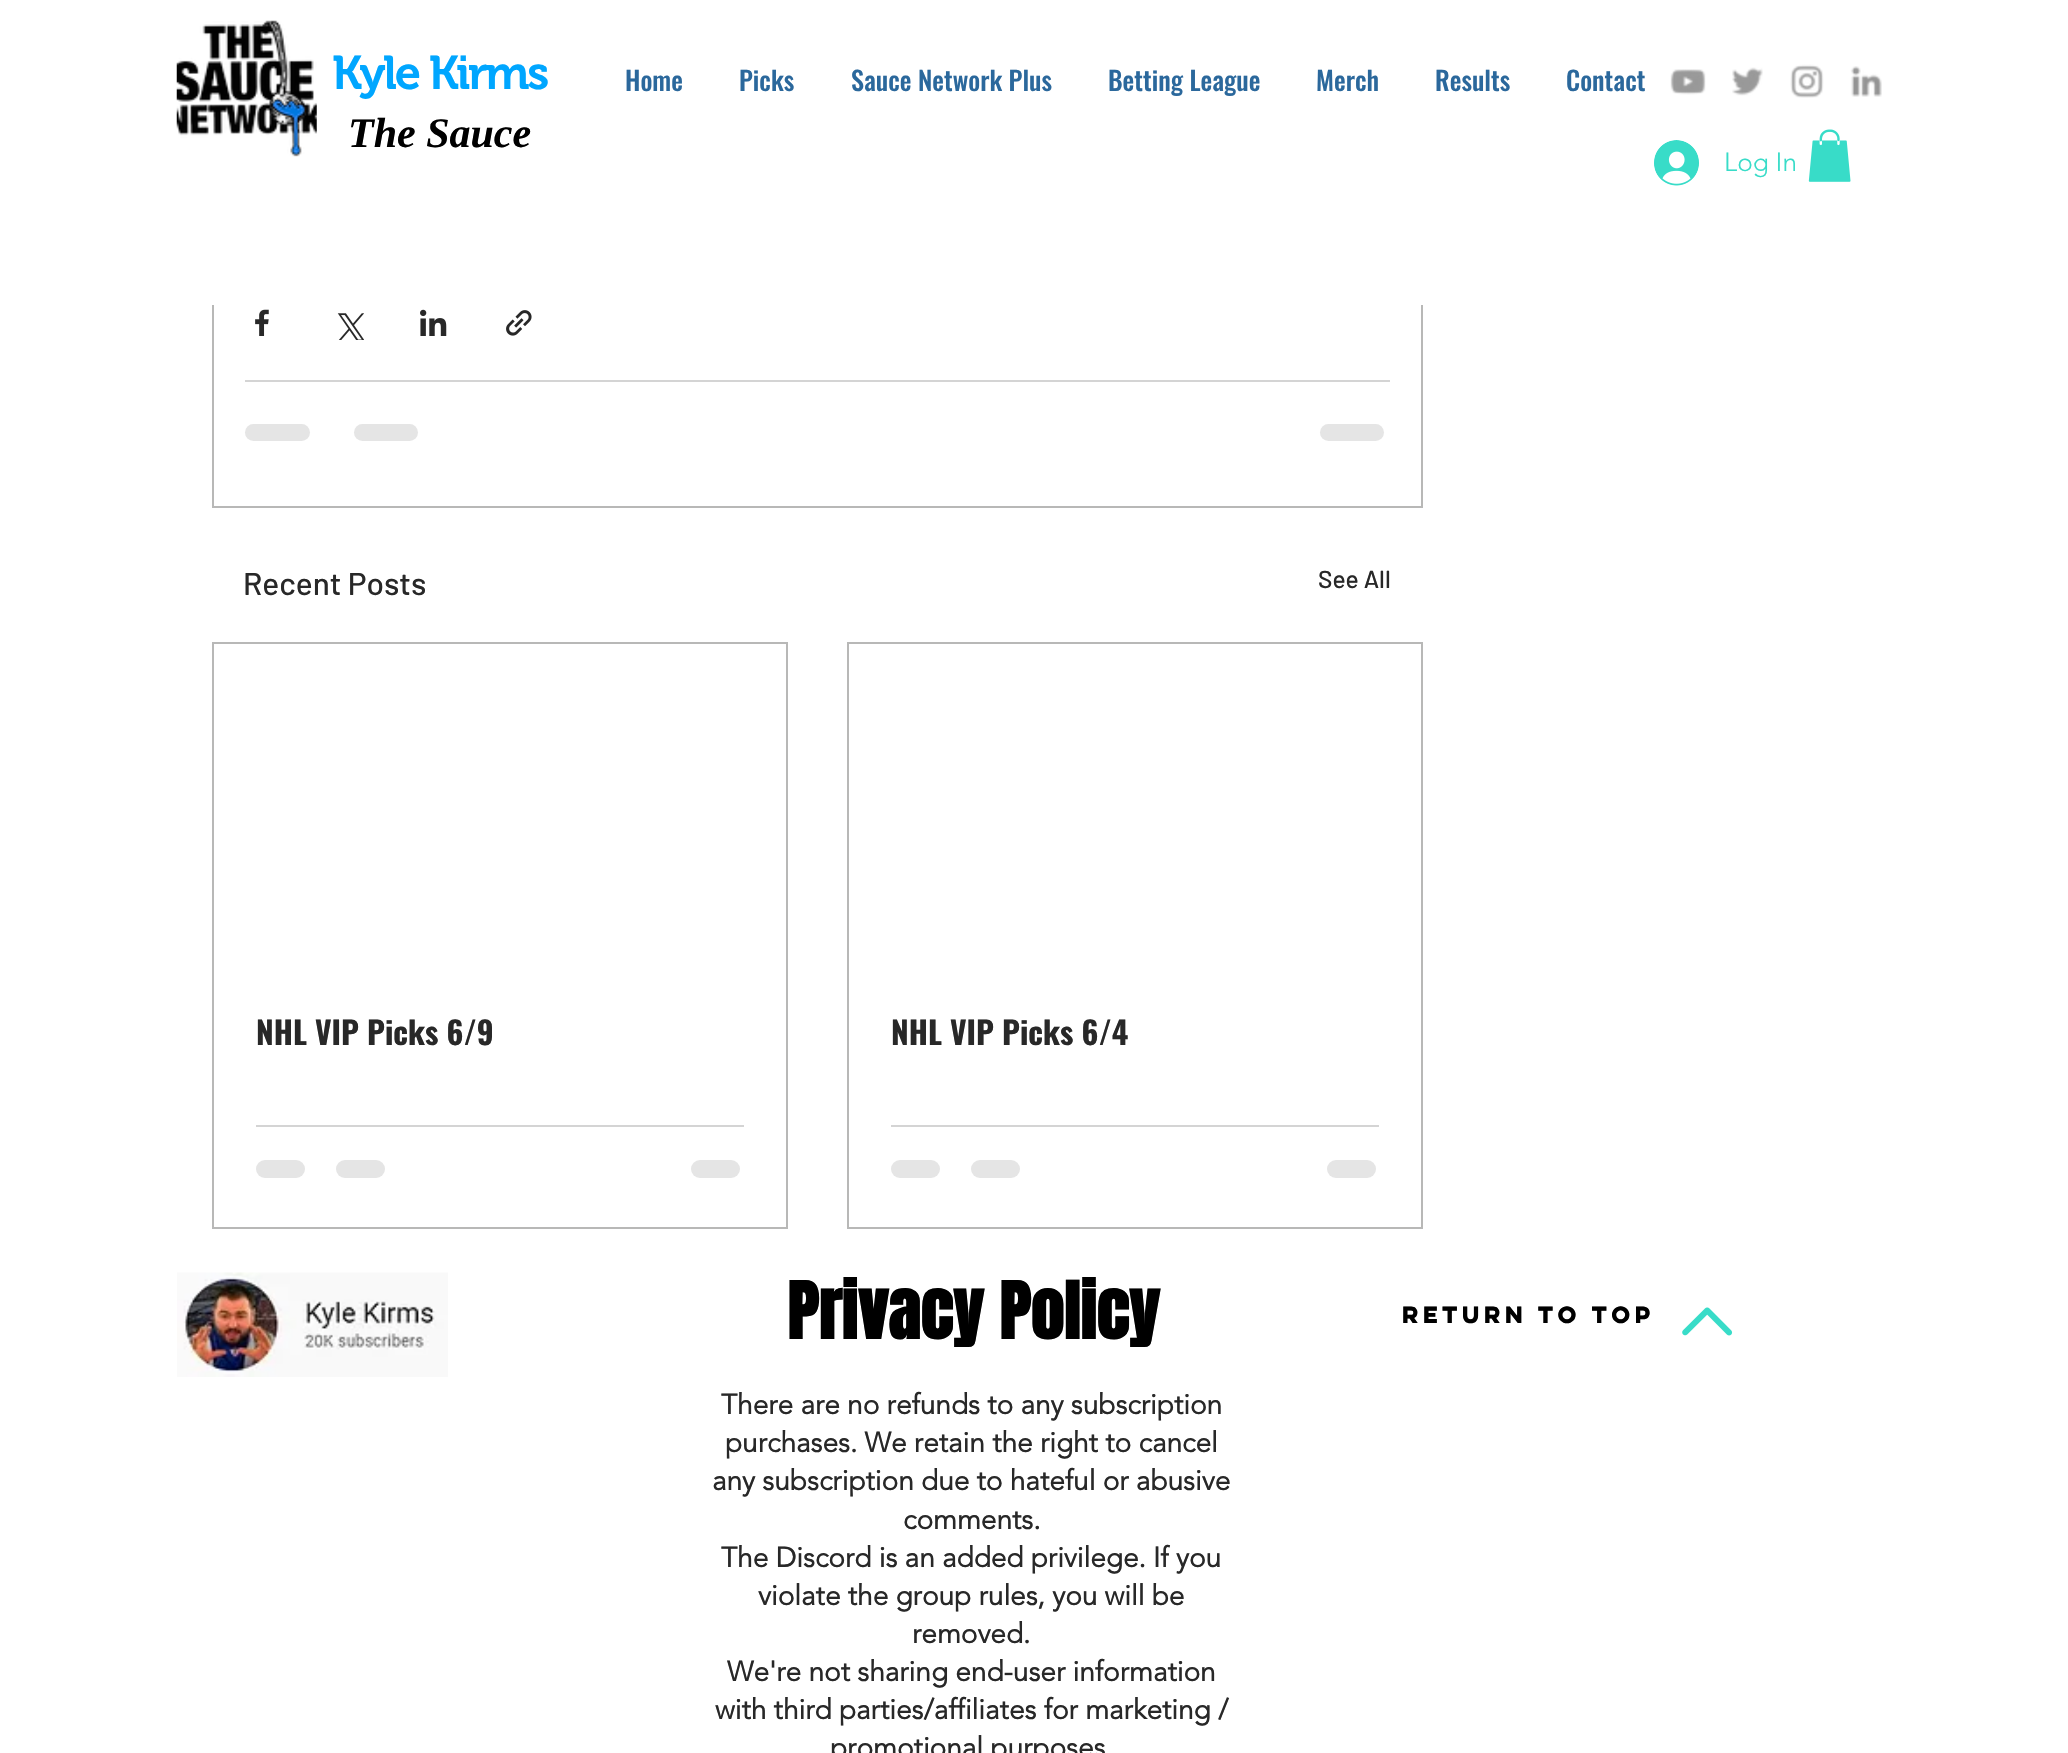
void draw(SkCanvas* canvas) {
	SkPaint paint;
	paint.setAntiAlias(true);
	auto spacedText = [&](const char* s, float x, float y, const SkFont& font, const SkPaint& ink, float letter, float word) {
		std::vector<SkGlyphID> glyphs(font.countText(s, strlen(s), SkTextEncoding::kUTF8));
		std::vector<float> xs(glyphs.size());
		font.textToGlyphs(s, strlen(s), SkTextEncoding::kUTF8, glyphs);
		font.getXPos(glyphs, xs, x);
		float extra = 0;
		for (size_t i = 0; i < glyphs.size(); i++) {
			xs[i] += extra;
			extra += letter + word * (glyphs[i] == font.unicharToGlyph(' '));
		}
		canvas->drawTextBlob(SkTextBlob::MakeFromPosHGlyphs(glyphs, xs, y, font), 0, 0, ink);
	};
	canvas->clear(0xffffffff);
	paint.setStroke(true);
	paint.setStrokeWidth(2);
	paint.setColor(0xffb8b8b7);
	canvas->drawRect(SkRect::MakeXYWH(213, -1, 1209, 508), paint);
	paint.setStroke(false);
	paint.setColor(0xffffffff);
	canvas->drawRect(SkRect::MakeXYWH(212, 0, 1211, 305), paint);
	canvas->drawImageRect(SkImages::DeferredFromEncodedData(SkData::MakeFromFileName("img1.png")), SkRect::MakeXYWH(176, 20, 141, 137), SkSamplingOptions());
	SkFont f1(fontMgr->matchFamilyStyle("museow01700", SkFontStyle(600, SkFontStyle::kNormal_Width, SkFontStyle::kUpright_Slant)), 47.25);
	f1.setSubpixel(true);
	paint.setColor(0xff00a6ff);
	spacedText("Kyle Kirms", 332, 89, f1, paint, -2.4, 0);
	SkFont f2(fontMgr->matchFamilyStyle("Oswald", SkFontStyle(500, SkFontStyle::kNormal_Width, SkFontStyle::kUpright_Slant)), 26.25);
	f2.setSubpixel(true);
	paint.setColor(0xff2b689c);
	canvas->drawString("Home", 625, 91, f2, paint);
	canvas->drawString("Picks", 739, 91, f2, paint);
	canvas->drawString("Sauce Network Plus", 851, 91, f2, paint);
	canvas->drawString("Betting League", 1108, 91, f2, paint);
	canvas->drawString("Merch", 1316, 91, f2, paint);
	canvas->drawString("Results", 1435, 91, f2, paint);
	canvas->drawString("Contact", 1566, 91, f2, paint);
	canvas->drawImageRect(SkImages::DeferredFromEncodedData(SkData::MakeFromFileName("img2.png")), SkRect::MakeXYWH(1670, 69, 36, 26), SkSamplingOptions());
	canvas->drawImageRect(SkImages::DeferredFromEncodedData(SkData::MakeFromFileName("img3.png")), SkRect::MakeXYWH(1732, 67, 31, 29), SkSamplingOptions());
	canvas->drawImageRect(SkImages::DeferredFromEncodedData(SkData::MakeFromFileName("img4.png")), SkRect::MakeXYWH(1790, 64, 34, 34), SkSamplingOptions());
	canvas->drawImageRect(SkImages::DeferredFromEncodedData(SkData::MakeFromFileName("img5.png")), SkRect::MakeXYWH(1850, 66, 32, 31), SkSamplingOptions());
	SkFont f3(fontMgr->matchFamilyStyle("Liberation Serif", SkFontStyle::BoldItalic()), 42);
	f3.setSubpixel(true);
	paint.setColor(0xff000000);
	canvas->drawString("The Sauce", 348, 147, f3, paint);
	canvas->drawImageRect(SkImages::DeferredFromEncodedData(SkData::MakeFromFileName("img6.png")), SkRect::MakeXYWH(1654, 140, 45, 46), SkSamplingOptions());
	SkFont f4(fontMgr->matchFamilyStyle("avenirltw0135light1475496", SkFontStyle(300, SkFontStyle::kNormal_Width, SkFontStyle::kUpright_Slant)), 26.25);
	f4.setSubpixel(true);
	paint.setColor(0xff38dcc8);
	canvas->drawString("Log In", 1724, 171, f4, paint);
	canvas->drawImageRect(SkImages::DeferredFromEncodedData(SkData::MakeFromFileName("img7.png")), SkRect::MakeXYWH(1808, 129, 43, 53), SkSamplingOptions());
	canvas->drawImageRect(SkImages::DeferredFromEncodedData(SkData::MakeFromFileName("img8.png")), SkRect::MakeXYWH(255, 309, 14, 27), SkSamplingOptions());
	canvas->drawImageRect(SkImages::DeferredFromEncodedData(SkData::MakeFromFileName("img9.png")), SkRect::MakeXYWH(337, 313, 27, 27), SkSamplingOptions());
	canvas->drawImageRect(SkImages::DeferredFromEncodedData(SkData::MakeFromFileName("img10.png")), SkRect::MakeXYWH(420, 309, 27, 27), SkSamplingOptions());
	canvas->drawImageRect(SkImages::DeferredFromEncodedData(SkData::MakeFromFileName("img11.png")), SkRect::MakeXYWH(506, 310, 26, 26), SkSamplingOptions());
	paint.setColor(0xffd4d4d4);
	canvas->drawRect(SkRect::MakeXYWH(245, 380, 1145, 2), paint);
	paint.setColor(0xffe5e5e5);
	canvas->drawRoundRect(SkRect::MakeXYWH(245, 424, 65, 17), 8.5, 8.5, paint);
	canvas->drawRoundRect(SkRect::MakeXYWH(354, 424, 64, 17), 8.5, 8.5, paint);
	canvas->drawRoundRect(SkRect::MakeXYWH(1320, 424, 64, 17), 8.5, 8.5, paint);
	SkFont f5(fontMgr->matchFamilyStyle("Barlow", SkFontStyle(500, SkFontStyle::kNormal_Width, SkFontStyle::kUpright_Slant)), 31.5);
	f5.setSubpixel(true);
	paint.setColor(0xff282828);
	canvas->drawString("Recent Posts", 243, 595, f5, paint);
	SkFont f6(fontMgr->matchFamilyStyle("Barlow", SkFontStyle(500, SkFontStyle::kNormal_Width, SkFontStyle::kUpright_Slant)), 24.5);
	f6.setSubpixel(true);
	canvas->drawString("See All", 1318, 588, f6, paint);
	paint.setStroke(true);
	paint.setColor(0xffb8b8b7);
	canvas->drawRect(SkRect::MakeXYWH(213, 643, 574, 585), paint);
	SkFont f7(fontMgr->matchFamilyStyle("Oswald", SkFontStyle::Bold()), 31.5);
	f7.setSubpixel(true);
	paint.setStroke(false);
	paint.setColor(0xff282828);
	canvas->drawString("NHL VIP Picks 6/9", 256, 1045, f7, paint);
	paint.setColor(0xffd4d4d4);
	canvas->drawRect(SkRect::MakeXYWH(256, 1125, 488, 2), paint);
	paint.setColor(0xffe5e5e5);
	canvas->drawRoundRect(SkRect::MakeXYWH(256, 1160, 49, 18), 9, 9, paint);
	canvas->drawRoundRect(SkRect::MakeXYWH(336, 1160, 49, 18), 9, 9, paint);
	canvas->drawRoundRect(SkRect::MakeXYWH(691, 1160, 49, 18), 9, 9, paint);
	paint.setStroke(true);
	paint.setColor(0xffb8b8b7);
	canvas->drawRect(SkRect::MakeXYWH(848, 643, 574, 585), paint);
	paint.setStroke(false);
	paint.setColor(0xff282828);
	canvas->drawString("NHL VIP Picks 6/4", 891, 1045, f7, paint);
	paint.setColor(0xffd4d4d4);
	canvas->drawRect(SkRect::MakeXYWH(891, 1125, 488, 2), paint);
	paint.setColor(0xffe5e5e5);
	canvas->drawRoundRect(SkRect::MakeXYWH(891, 1160, 49, 18), 9, 9, paint);
	canvas->drawRoundRect(SkRect::MakeXYWH(971, 1160, 49, 18), 9, 9, paint);
	canvas->drawRoundRect(SkRect::MakeXYWH(1327, 1160, 49, 18), 9, 9, paint);
	canvas->drawImageRect(SkImages::DeferredFromEncodedData(SkData::MakeFromFileName("img12.png")), SkRect::MakeXYWH(177, 1272, 271, 105), SkSamplingOptions());
	SkFont f8(fontMgr->matchFamilyStyle("Anton", SkFontStyle::Bold()), 66.5);
	f8.setSubpixel(true);
	paint.setColor(0xff000000);
	canvas->drawString("Privacy Policy", 787, 1339, f8, paint);
	SkFont f9(fontMgr->matchFamilyStyle("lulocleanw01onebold", SkFontStyle::Bold()), 21);
	f9.setSubpixel(true);
	canvas->drawString("RETURN TO TOP", 1402, 1323, f9, paint);
	canvas->drawImageRect(SkImages::DeferredFromEncodedData(SkData::MakeFromFileName("img13.png")), SkRect::MakeXYWH(1682, 1307, 51, 29), SkSamplingOptions());
	SkFont f10(fontMgr->matchFamilyStyle("avenirltw0135light1475496", SkFontStyle::Bold()), 28);
	f10.setSubpixel(true);
	paint.setColor(0xff282828);
	canvas->drawString("There are no refunds to any subscription", 721, 1414, f10, paint);
	canvas->drawString("purchases. We retain the right to cancel", 725, 1452, f10, paint);
	canvas->drawString("any subscription due to hateful or abusive", 712, 1490, f10, paint);
	canvas->drawString("comments.", 903, 1529, f10, paint);
	canvas->drawString("The Discord is an added privilege. If you", 721, 1567, f10, paint);
	canvas->drawString("violate the group rules, you will be", 758, 1605, f10, paint);
	canvas->drawString("removed.", 912, 1643, f10, paint);
	canvas->drawString("We're not sharing end-user information", 727, 1681, f10, paint);
	canvas->drawString("with third parties/affiliates for marketing /", 715, 1719, f10, paint);
	canvas->drawString("promotional purposes", 830, 1757, f10, paint);
}
